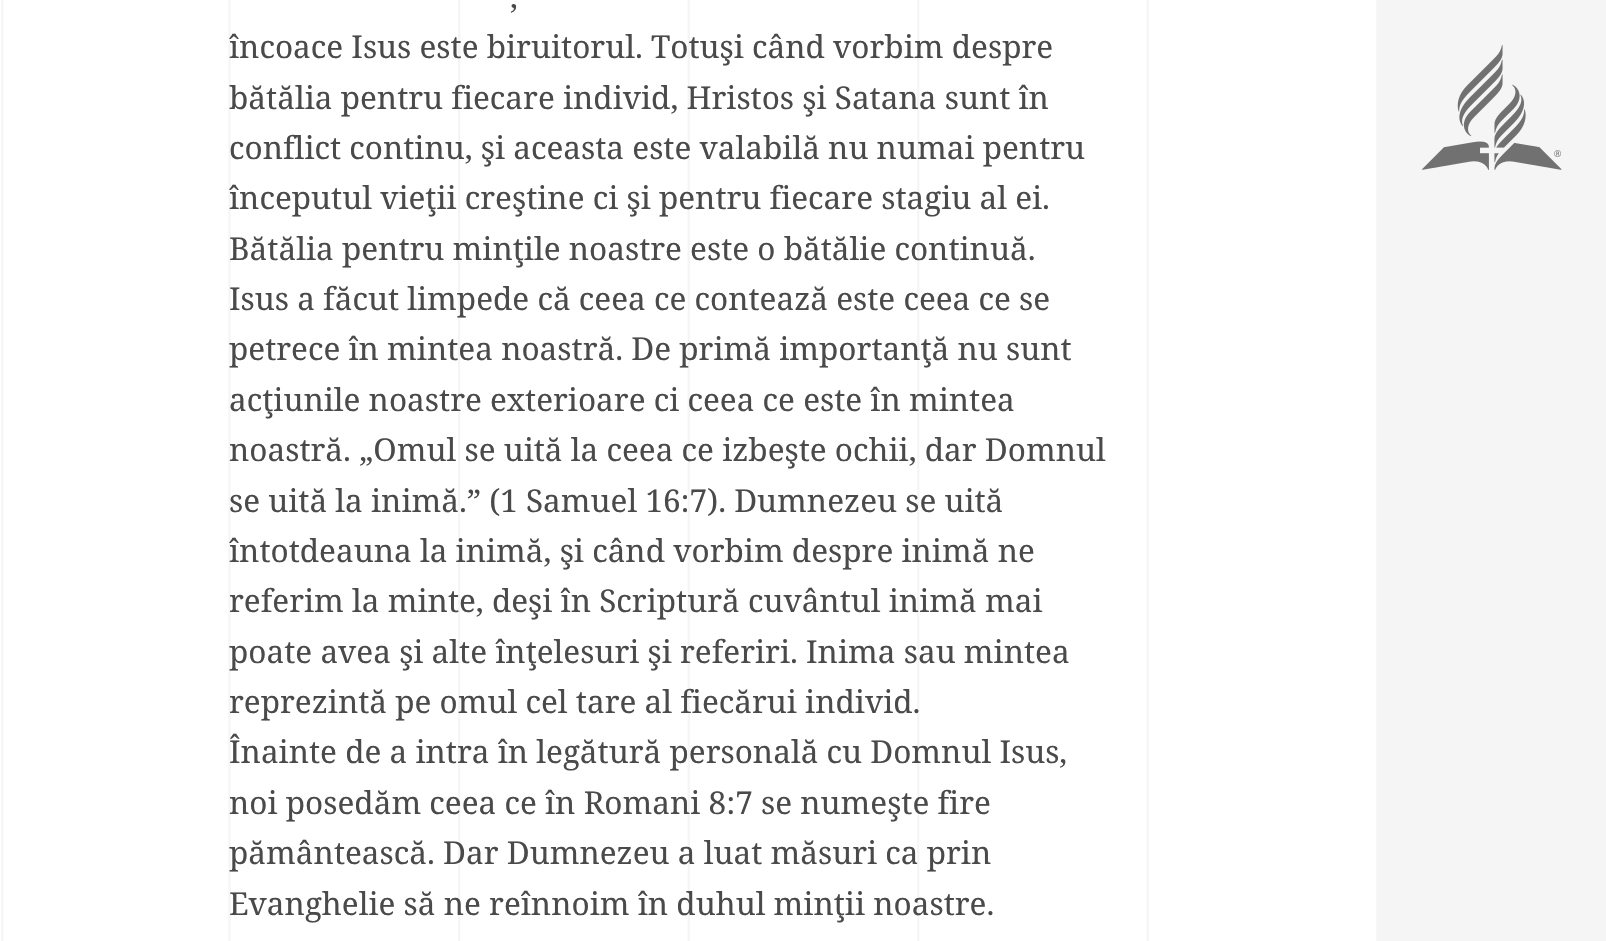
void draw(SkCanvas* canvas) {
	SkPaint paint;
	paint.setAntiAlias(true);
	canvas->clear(0xffffffff);
	canvas->drawImageRect(SkImages::DeferredFromEncodedData(SkData::MakeFromFileName("img1.png")), SkRect::MakeXYWH(1, 0, 1376, 941), SkSamplingOptions());
	SkFont f1(fontMgr->matchFamilyStyle("Noto Serif", SkFontStyle::Normal()), 31.5);
	f1.setSubpixel(true);
	paint.setColor(0xff4a4a4a);
	canvas->drawString(",", 510, 8, f1, paint);
	canvas->drawString("încoace Isus este biruitorul. Totuşi când vorbim despre", 229, 58, f1, paint);
	canvas->drawString("bătălia pentru fiecare individ, Hristos şi Satana sunt în", 229, 109, f1, paint);
	canvas->drawString("conflict continu, şi aceasta este valabilă nu numai pentru", 229, 159, f1, paint);
	canvas->drawString("începutul vieţii creştine ci şi pentru fiecare stagiu al ei.", 229, 209, f1, paint);
	canvas->drawString("Bătălia pentru minţile noastre este o bătălie continuă.", 229, 260, f1, paint);
	canvas->drawString("Isus a făcut limpede că ceea ce contează este ceea ce se", 229, 310, f1, paint);
	canvas->drawString("petrece în mintea noastră. De primă importanţă nu sunt", 229, 360, f1, paint);
	canvas->drawString("acţiunile noastre exterioare ci ceea ce este în mintea", 229, 411, f1, paint);
	canvas->drawString("noastră. „Omul se uită la ceea ce izbeşte ochii, dar Domnul", 229, 461, f1, paint);
	canvas->drawString("se uită la inimă.” (1 Samuel 16:7). Dumnezeu se uită", 229, 512, f1, paint);
	canvas->drawString("întotdeauna la inimă, şi când vorbim despre inimă ne", 229, 562, f1, paint);
	canvas->drawString("referim la minte, deşi în Scriptură cuvântul inimă mai", 229, 612, f1, paint);
	canvas->drawString("poate avea şi alte înţelesuri şi referiri. Inima sau mintea", 229, 663, f1, paint);
	canvas->drawString("reprezintă pe omul cel tare al fiecărui individ.", 229, 713, f1, paint);
	canvas->drawString("Înainte de a intra în legătură personală cu Domnul Isus,", 229, 763, f1, paint);
	canvas->drawString("noi posedăm ceea ce în Romani 8:7 se numeşte fire", 229, 814, f1, paint);
	canvas->drawString("pământească. Dar Dumnezeu a luat măsuri ca prin", 229, 864, f1, paint);
	canvas->drawString("Evanghelie să ne reînnoim în duhul minţii noastre.", 229, 915, f1, paint);
	paint.setColor(0xfff5f5f5);
	canvas->drawRect(SkRect::MakeXYWH(1377, 0, 229, 941), paint);
	canvas->drawImageRect(SkImages::DeferredFromEncodedData(SkData::MakeFromFileName("img2.png")), SkRect::MakeXYWH(1422, 45, 140, 125), SkSamplingOptions());
}
